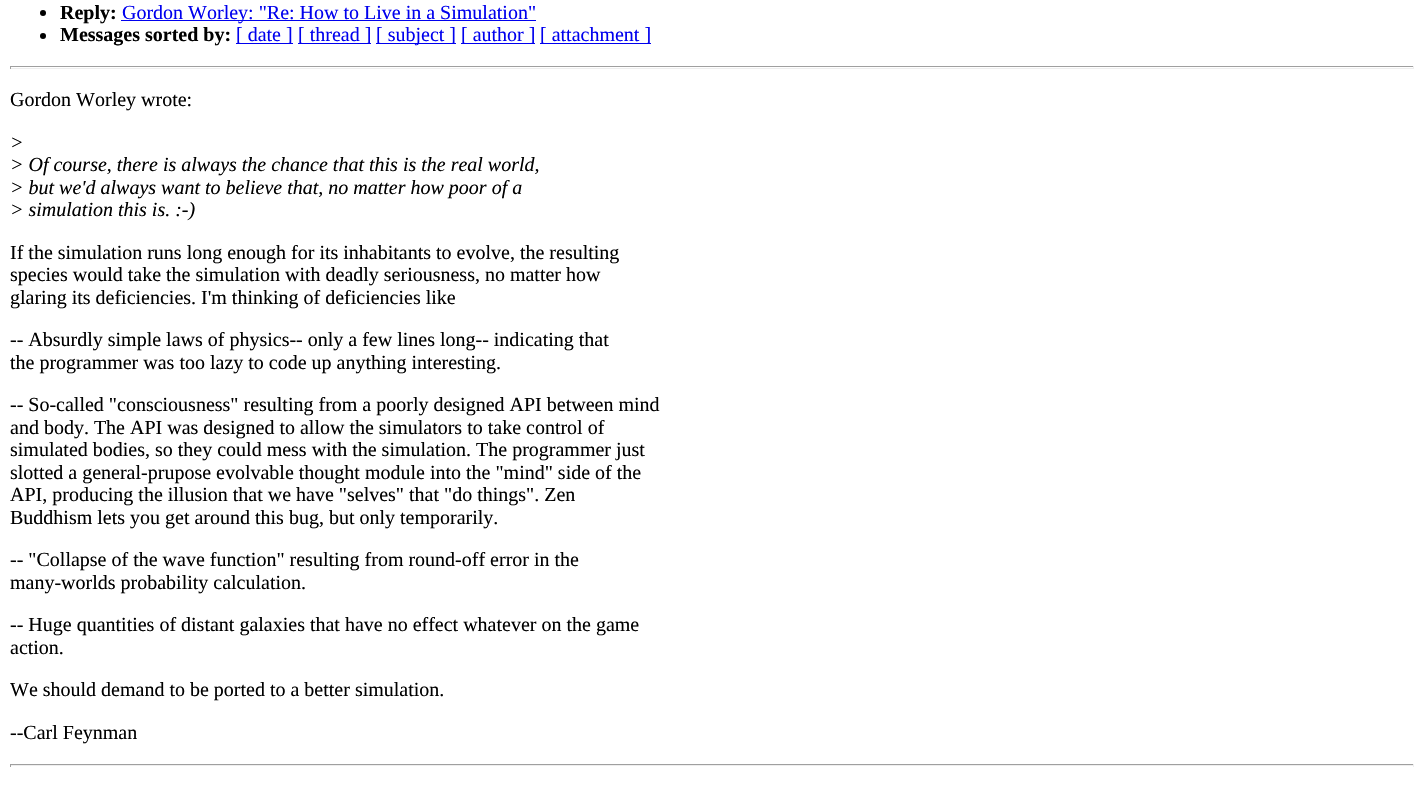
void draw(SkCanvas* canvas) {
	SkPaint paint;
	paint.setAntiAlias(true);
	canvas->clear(0xffffffff);
	paint.setColor(0xff000000);
	canvas->drawCircle(43, 13, 3, paint);
	SkFont f1(fontMgr->matchFamilyStyle("Liberation Serif", SkFontStyle::Bold()), 20);
	f1.setSubpixel(true);
	canvas->drawString("Reply:", 60, 19, f1, paint);
	paint.setColor(0xff0000ee);
	canvas->drawRect(SkRect::MakeXYWH(121, 20, 415, 1), paint);
	SkFont f2(fontMgr->matchFamilyStyle("Liberation Serif", SkFontStyle::Normal()), 20);
	f2.setSubpixel(true);
	canvas->drawString("Gordon Worley: \"Re: How to Live in a Simulation\"", 122, 19, f2, paint);
	paint.setColor(0xff000000);
	canvas->drawCircle(43, 36, 3, paint);
	canvas->drawString("Messages sorted by:", 60, 41, f1, paint);
	paint.setColor(0xff0000ee);
	canvas->drawRect(SkRect::MakeXYWH(236, 43, 57, 1), paint);
	canvas->drawString("[ date ]", 236, 41, f2, paint);
	canvas->drawRect(SkRect::MakeXYWH(298, 43, 73, 1), paint);
	canvas->drawString("[ thread ]", 298, 41, f2, paint);
	canvas->drawRect(SkRect::MakeXYWH(376, 43, 80, 1), paint);
	canvas->drawString("[ subject ]", 376, 41, f2, paint);
	canvas->drawRect(SkRect::MakeXYWH(461, 43, 74, 1), paint);
	canvas->drawString("[ author ]", 461, 41, f2, paint);
	canvas->drawRect(SkRect::MakeXYWH(540, 43, 111, 1), paint);
	canvas->drawString("[ attachment ]", 540, 41, f2, paint);
	paint.setColor(0xff9f9f9f);
	canvas->drawRect(SkRect::MakeXYWH(10, 66, 1404, 1), paint);
	paint.setColor(0xffeeeeee);
	canvas->drawRect(SkRect::MakeXYWH(1413, 66, 1, 3), paint);
	canvas->drawRect(SkRect::MakeXYWH(10, 68, 1404, 1), paint);
	paint.setColor(0xff9f9f9f);
	canvas->drawRect(SkRect::MakeXYWH(10, 66, 1, 3), paint);
	paint.setColor(0xff000000);
	canvas->drawString("Gordon Worley wrote:", 10, 106, f2, paint);
	SkFont f3(fontMgr->matchFamilyStyle("Liberation Serif", SkFontStyle::Italic()), 20);
	f3.setSubpixel(true);
	canvas->drawString(">", 10, 149, f3, paint);
	canvas->drawString("> Of course, there is always the chance that this is the real world,", 10, 171, f3, paint);
	canvas->drawString("> but we'd always want to believe that, no matter how poor of a", 10, 194, f3, paint);
	canvas->drawString("> simulation this is. :-)", 10, 216, f3, paint);
	canvas->drawString("If the simulation runs long enough for its inhabitants to evolve, the resulting", 10, 259, f2, paint);
	canvas->drawString("species would take the simulation with deadly seriousness, no matter how", 10, 281, f2, paint);
	canvas->drawString("glaring its deficiencies. I'm thinking of deficiencies like", 10, 304, f2, paint);
	canvas->drawString("-- Absurdly simple laws of physics-- only a few lines long-- indicating that", 10, 346, f2, paint);
	canvas->drawString("the programmer was too lazy to code up anything interesting.", 10, 369, f2, paint);
	canvas->drawString("-- So-called \"consciousness\" resulting from a poorly designed API between mind", 10, 411, f2, paint);
	canvas->drawString("and body. The API was designed to allow the simulators to take control of", 10, 434, f2, paint);
	canvas->drawString("simulated bodies, so they could mess with the simulation. The programmer just", 10, 456, f2, paint);
	canvas->drawString("slotted a general-prupose evolvable thought module into the \"mind\" side of the", 10, 479, f2, paint);
	canvas->drawString("API, producing the illusion that we have \"selves\" that \"do things\". Zen", 10, 501, f2, paint);
	canvas->drawString("Buddhism lets you get around this bug, but only temporarily.", 10, 524, f2, paint);
	canvas->drawString("-- \"Collapse of the wave function\" resulting from round-off error in the", 10, 566, f2, paint);
	canvas->drawString("many-worlds probability calculation.", 10, 589, f2, paint);
	canvas->drawString("-- Huge quantities of distant galaxies that have no effect whatever on the game", 10, 631, f2, paint);
	canvas->drawString("action.", 10, 654, f2, paint);
	canvas->drawString("We should demand to be ported to a better simulation.", 10, 696, f2, paint);
	canvas->drawString("--Carl Feynman", 10, 739, f2, paint);
	paint.setColor(0xff9f9f9f);
	canvas->drawRect(SkRect::MakeXYWH(10, 764, 1404, 1), paint);
	paint.setColor(0xffeeeeee);
	canvas->drawRect(SkRect::MakeXYWH(1413, 764, 1, 3), paint);
	canvas->drawRect(SkRect::MakeXYWH(10, 765, 1404, 1), paint);
	paint.setColor(0xff9f9f9f);
	canvas->drawRect(SkRect::MakeXYWH(10, 764, 1, 3), paint);
}
